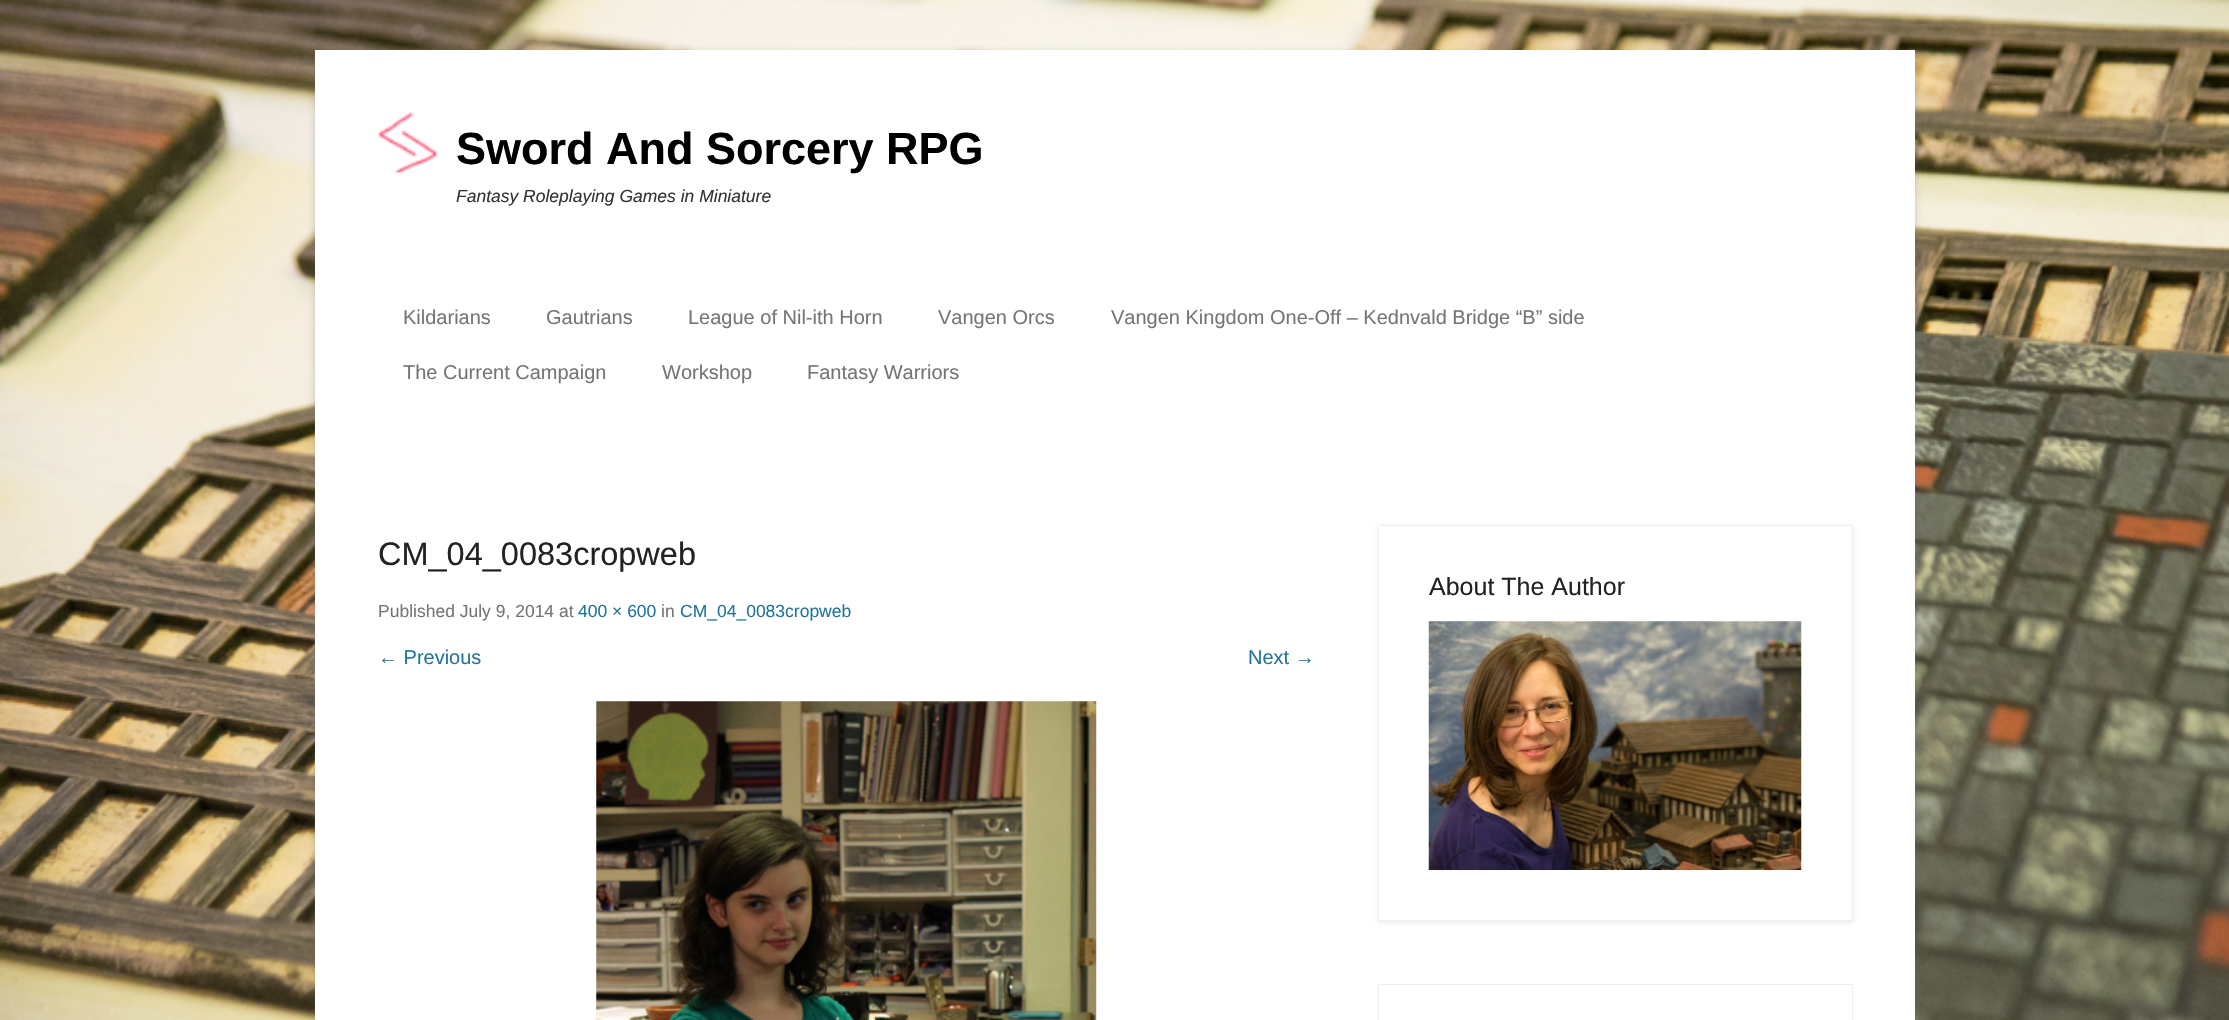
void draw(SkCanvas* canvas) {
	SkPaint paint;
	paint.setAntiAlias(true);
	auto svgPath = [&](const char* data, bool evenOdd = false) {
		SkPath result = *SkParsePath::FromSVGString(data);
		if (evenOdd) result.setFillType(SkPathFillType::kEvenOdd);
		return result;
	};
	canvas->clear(0xffffffff);
	canvas->drawImageRect(SkImages::DeferredFromEncodedData(SkData::MakeFromFileName("img1.png")), SkRect::MakeXYWH(0, 0, 2229, 1020), SkSamplingOptions());
	paint.setColor(0x4d646464);
	paint.setMaskFilter(SkMaskFilter::MakeBlur(kNormal_SkBlurStyle, 4));
	canvas->drawRect(SkRect::MakeXYWH(315, 53, 1600, 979), paint);
	paint.setMaskFilter(nullptr);
	paint.setColor(0xffffffff);
	canvas->drawRect(SkRect::MakeXYWH(315, 50, 1600, 970), paint);
	canvas->drawImageRect(SkImages::DeferredFromEncodedData(SkData::MakeFromFileName("img2.png")), SkRect::MakeXYWH(377, 112, 61, 61), SkSamplingOptions());
	SkFont f1(fontMgr->matchFamilyStyle("Liberation Sans", SkFontStyle::Bold()), 45);
	f1.setSubpixel(true);
	paint.setColor(0xff000000);
	canvas->drawString("Sword And Sorcery RPG", 456, 164, f1, paint);
	SkFont f2(fontMgr->matchFamilyStyle("Liberation Sans", SkFontStyle::Italic()), 17.5);
	f2.setSubpixel(true);
	paint.setColor(0xff333333);
	canvas->drawString("Fantasy Roleplaying Games in Miniature", 456, 202, f2, paint);
	SkFont f3(fontMgr->matchFamilyStyle("Liberation Sans", SkFontStyle::Normal()), 20);
	f3.setSubpixel(true);
	paint.setColor(0xff757575);
	canvas->drawString("Kildarians", 403, 324, f3, paint);
	canvas->drawString("Gautrians", 546, 324, f3, paint);
	canvas->drawString("League of Nil-ith Horn", 688, 324, f3, paint);
	canvas->drawString("Vangen Orcs", 938, 324, f3, paint);
	canvas->drawString("Vangen Kingdom One-Off – Kednvald Bridge “B” side", 1111, 324, f3, paint);
	canvas->drawString("The Current Campaign", 403, 379, f3, paint);
	canvas->drawString("Workshop", 662, 379, f3, paint);
	canvas->drawString("Fantasy Warriors", 807, 379, f3, paint);
	SkFont f4(fontMgr->matchFamilyStyle("Liberation Sans", SkFontStyle::Normal()), 32.5);
	f4.setSubpixel(true);
	paint.setColor(0xff222222);
	canvas->drawString("CM_04_0083cropweb", 378, 565, f4, paint);
	SkFont f5(fontMgr->matchFamilyStyle("Liberation Sans", SkFontStyle::Normal()), 17.5);
	f5.setSubpixel(true);
	paint.setColor(0xff757575);
	canvas->drawString("Published July 9, 2014 at", 378, 617, f5, paint);
	paint.setColor(0xff21759b);
	canvas->drawString("400 × 600", 578, 617, f5, paint);
	paint.setColor(0xff757575);
	canvas->drawString("in", 661, 617, f5, paint);
	paint.setColor(0xff21759b);
	canvas->drawString("CM_04_0083cropweb", 680, 617, f5, paint);
	canvas->drawString("← Previous", 378, 664, f3, paint);
	canvas->drawString("Next →", 1248, 664, f3, paint);
	canvas->drawImageRect(SkImages::DeferredFromEncodedData(SkData::MakeFromFileName("img3.png")), SkRect::MakeXYWH(596, 701, 501, 319), SkSamplingOptions());
	canvas->save();
	canvas->clipPath(svgPath("M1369 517H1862V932H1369ZM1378 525H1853V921H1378Z", true), true);
	paint.setColor(0x12000000);
	paint.setMaskFilter(SkMaskFilter::MakeBlur(kNormal_SkBlurStyle, 2.5));
	canvas->drawRect(SkRect::MakeXYWH(1378, 526, 475, 397), paint);
	paint.setMaskFilter(nullptr);
	canvas->restore();
	paint.setStroke(true);
	paint.setStrokeWidth(1);
	paint.setColor(0xffeeeeee);
	canvas->drawRect(SkRect::MakeXYWH(1378.5, 525.5, 474, 395), paint);
	SkFont f6(fontMgr->matchFamilyStyle("Liberation Sans", SkFontStyle::Normal()), 25);
	f6.setSubpixel(true);
	paint.setStroke(false);
	paint.setColor(0xff222222);
	canvas->drawString("About The Author", 1429, 595, f6, paint);
	canvas->drawImageRect(SkImages::DeferredFromEncodedData(SkData::MakeFromFileName("img4.png")), SkRect::MakeXYWH(1428, 621, 374, 249), SkSamplingOptions());
	paint.setStroke(true);
	paint.setColor(0xffeeeeee);
	canvas->drawRect(SkRect::MakeXYWH(1378.5, 984.5, 474, 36), paint);
}
